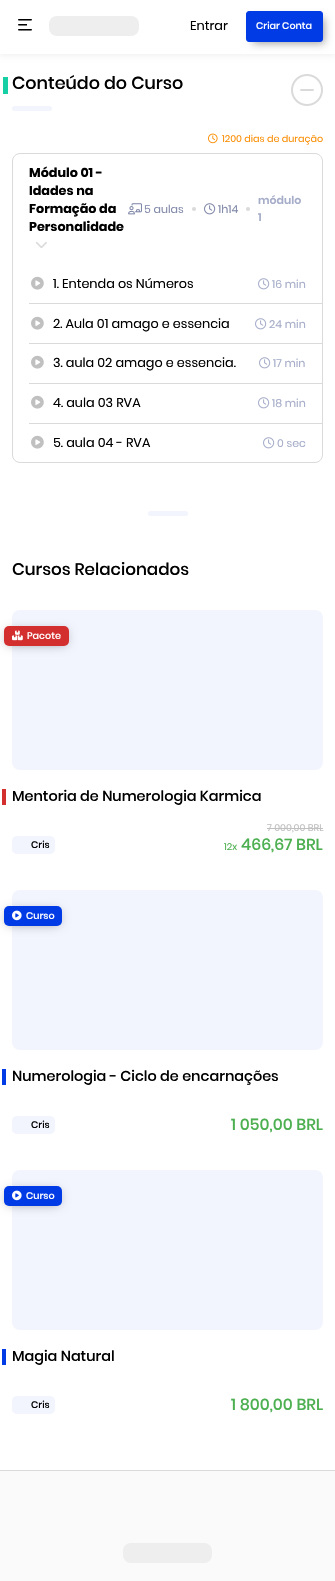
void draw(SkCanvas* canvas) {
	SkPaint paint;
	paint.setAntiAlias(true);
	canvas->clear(0xffffffff);
	paint.setColor(0x0d000000);
	paint.setMaskFilter(SkMaskFilter::MakeBlur(kNormal_SkBlurStyle, 2.5));
	canvas->drawRect(SkRect::MakeXYWH(0, 2, 335, 54), paint);
	paint.setMaskFilter(nullptr);
	paint.setColor(0xffffffff);
	canvas->drawRect(SkRect::MakeXYWH(0, 0, 335, 54), paint);
	canvas->drawImageRect(SkImages::DeferredFromEncodedData(SkData::MakeFromFileName("img1.png")), SkRect::MakeXYWH(18, 19, 14, 12), SkSamplingOptions());
	canvas->drawRect(SkRect::MakeXYWH(27, 24, 6, 2), paint);
	paint.setColor(0xffeeeeee);
	canvas->drawRoundRect(SkRect::MakeXYWH(49, 16, 90, 20), 8, 8, paint);
	SkFont f1(fontMgr->matchFamilyStyle("Poppins", SkFontStyle::Normal()), 12.75);
	f1.setSubpixel(true);
	paint.setColor(0xff000000);
	canvas->drawString("Entrar", 190, 30, f1, paint);
	paint.setColor(0x66000000);
	paint.setMaskFilter(SkMaskFilter::MakeBlur(kNormal_SkBlurStyle, 4));
	canvas->drawRect(SkRect::MakeXYWH(253, 18, 71, 25), paint);
	paint.setMaskFilter(nullptr);
	paint.setColor(0xff013be5);
	canvas->drawRoundRect(SkRect::MakeXYWH(246.5, 11.5, 76, 30), 2.5, 2.5, paint);
	paint.setStroke(true);
	paint.setStrokeWidth(1);
	canvas->drawRoundRect(SkRect::MakeXYWH(246.5, 11.5, 76, 30), 2.5, 2.5, paint);
	SkFont f2(fontMgr->matchFamilyStyle("Poppins", SkFontStyle(500, SkFontStyle::kNormal_Width, SkFontStyle::kUpright_Slant)), 9.6);
	f2.setSubpixel(true);
	paint.setStroke(false);
	paint.setColor(0xffffffff);
	canvas->drawString("Criar Conta", 256, 29, f2, paint);
	paint.setColor(0xff17cfa4);
	canvas->drawRect(SkRect::MakeXYWH(3, 77, 5, 17), paint);
	SkFont f3(fontMgr->matchFamilyStyle("Poppins", SkFontStyle(500, SkFontStyle::kNormal_Width, SkFontStyle::kUpright_Slant)), 17.5);
	f3.setSubpixel(true);
	paint.setColor(0xff000000);
	canvas->drawString("Conteúdo do Curso", 12, 89, f3, paint);
	canvas->drawImageRect(SkImages::DeferredFromEncodedData(SkData::MakeFromFileName("img2.png")), SkRect::MakeXYWH(291, 74, 32, 32), SkSamplingOptions());
	paint.setColor(0xfff2f5fe);
	canvas->drawRoundRect(SkRect::MakeXYWH(12, 106, 40, 5), 2.5, 2.5, paint);
	canvas->drawImageRect(SkImages::DeferredFromEncodedData(SkData::MakeFromFileName("img3.png")), SkRect::MakeXYWH(208, 133, 10, 11), SkSamplingOptions());
	SkFont f4(fontMgr->matchFamilyStyle("Poppins", SkFontStyle::Normal()), 9.6);
	f4.setSubpixel(true);
	paint.setColor(0xfffb8c00);
	canvas->drawString("1200 dias de duração", 222, 142, f4, paint);
	paint.setStroke(true);
	paint.setColor(0xffdadada);
	canvas->drawRoundRect(SkRect::MakeXYWH(12.5, 153.5, 310, 309), 7.5, 7.5, paint);
	SkFont f5(fontMgr->matchFamilyStyle("Poppins", SkFontStyle::Bold()), 12.75);
	f5.setSubpixel(true);
	paint.setStroke(false);
	paint.setColor(0xff000000);
	canvas->drawString("Módulo 01 -", 29, 177, f5, paint);
	canvas->drawString("Idades na", 29, 195, f5, paint);
	canvas->drawString("Formação da", 29, 213, f5, paint);
	canvas->drawString("Personalidade", 29, 231, f5, paint);
	canvas->drawImageRect(SkImages::DeferredFromEncodedData(SkData::MakeFromFileName("img4.png")), SkRect::MakeXYWH(36, 242, 11, 6), SkSamplingOptions());
	canvas->drawImageRect(SkImages::DeferredFromEncodedData(SkData::MakeFromFileName("img5.png")), SkRect::MakeXYWH(128, 203, 14, 12), SkSamplingOptions());
	SkFont f6(fontMgr->matchFamilyStyle("Poppins", SkFontStyle::Normal()), 11);
	f6.setSubpixel(true);
	paint.setColor(0xff8189a9);
	canvas->drawString("5 aulas", 144, 213, f6, paint);
	paint.setColor(0xffdadada);
	canvas->drawCircle(194, 209, 2, paint);
	canvas->drawImageRect(SkImages::DeferredFromEncodedData(SkData::MakeFromFileName("img6.png")), SkRect::MakeXYWH(204, 203, 12, 12), SkSamplingOptions());
	paint.setColor(0xff8189a9);
	canvas->drawString("1h14", 218, 213, f6, paint);
	paint.setColor(0xffdadada);
	canvas->drawCircle(248, 209, 2, paint);
	SkFont f7(fontMgr->matchFamilyStyle("Poppins", SkFontStyle(600, SkFontStyle::kNormal_Width, SkFontStyle::kUpright_Slant)), 11);
	f7.setSubpixel(true);
	paint.setColor(0xffa6adc9);
	canvas->drawString("módulo", 258, 204, f7, paint);
	canvas->drawString("1", 258, 221, f7, paint);
	paint.setColor(0xffdadada);
	canvas->drawRect(SkRect::MakeXYWH(29, 303, 293, 1), paint);
	canvas->drawImageRect(SkImages::DeferredFromEncodedData(SkData::MakeFromFileName("img7.png")), SkRect::MakeXYWH(31, 276, 13, 14), SkSamplingOptions());
	paint.setColor(0xff000000);
	canvas->drawString("1. Entenda os Números", 53, 288, f1, paint);
	canvas->drawImageRect(SkImages::DeferredFromEncodedData(SkData::MakeFromFileName("img8.png")), SkRect::MakeXYWH(258, 278, 12, 12), SkSamplingOptions());
	paint.setColor(0xffa6adc9);
	canvas->drawString("16 min", 272, 288, f6, paint);
	paint.setColor(0xffdadada);
	canvas->drawRect(SkRect::MakeXYWH(29, 343, 293, 1), paint);
	canvas->drawImageRect(SkImages::DeferredFromEncodedData(SkData::MakeFromFileName("img7.png")), SkRect::MakeXYWH(31, 316, 13, 14), SkSamplingOptions());
	paint.setColor(0xff000000);
	canvas->drawString("2. Aula 01 amago e essencia", 53, 328, f1, paint);
	canvas->drawImageRect(SkImages::DeferredFromEncodedData(SkData::MakeFromFileName("img8.png")), SkRect::MakeXYWH(255, 318, 12, 12), SkSamplingOptions());
	paint.setColor(0xffa6adc9);
	canvas->drawString("24 min", 269, 328, f6, paint);
	paint.setColor(0xffdadada);
	canvas->drawRect(SkRect::MakeXYWH(29, 383, 293, 1), paint);
	canvas->drawImageRect(SkImages::DeferredFromEncodedData(SkData::MakeFromFileName("img7.png")), SkRect::MakeXYWH(31, 355, 13, 14), SkSamplingOptions());
	paint.setColor(0xff000000);
	canvas->drawString("3. aula 02 amago e essencia.", 53, 367, f1, paint);
	canvas->drawImageRect(SkImages::DeferredFromEncodedData(SkData::MakeFromFileName("img8.png")), SkRect::MakeXYWH(259, 357, 12, 12), SkSamplingOptions());
	paint.setColor(0xffa6adc9);
	canvas->drawString("17 min", 273, 367, f6, paint);
	paint.setColor(0xffdadada);
	canvas->drawRect(SkRect::MakeXYWH(29, 423, 293, 1), paint);
	canvas->drawImageRect(SkImages::DeferredFromEncodedData(SkData::MakeFromFileName("img7.png")), SkRect::MakeXYWH(31, 395, 13, 14), SkSamplingOptions());
	paint.setColor(0xff000000);
	canvas->drawString("4. aula 03 RVA", 53, 407, f1, paint);
	canvas->drawImageRect(SkImages::DeferredFromEncodedData(SkData::MakeFromFileName("img8.png")), SkRect::MakeXYWH(258, 397, 12, 12), SkSamplingOptions());
	paint.setColor(0xffa6adc9);
	canvas->drawString("18 min", 272, 407, f6, paint);
	canvas->drawImageRect(SkImages::DeferredFromEncodedData(SkData::MakeFromFileName("img7.png")), SkRect::MakeXYWH(31, 435, 13, 14), SkSamplingOptions());
	paint.setColor(0xff000000);
	canvas->drawString("5. aula 04 - RVA", 53, 447, f1, paint);
	canvas->drawImageRect(SkImages::DeferredFromEncodedData(SkData::MakeFromFileName("img8.png")), SkRect::MakeXYWH(263, 437, 12, 12), SkSamplingOptions());
	paint.setColor(0xffa6adc9);
	canvas->drawString("0 sec", 277, 447, f6, paint);
	paint.setColor(0xfff2f5fe);
	canvas->drawRoundRect(SkRect::MakeXYWH(148, 511, 40, 5), 2.5, 2.5, paint);
	SkFont f8(fontMgr->matchFamilyStyle("Poppins", SkFontStyle(500, SkFontStyle::kNormal_Width, SkFontStyle::kUpright_Slant)), 16.75);
	f8.setSubpixel(true);
	paint.setColor(0xff000000);
	canvas->drawString("Cursos Relacionados", 12, 575, f8, paint);
	paint.setColor(0xfff2f5fe);
	canvas->drawRoundRect(SkRect::MakeXYWH(12, 610, 311, 160), 8, 8, paint);
	paint.setColor(0x66000000);
	paint.setMaskFilter(SkMaskFilter::MakeBlur(kNormal_SkBlurStyle, 5.5));
	canvas->drawRoundRect(SkRect::MakeXYWH(7, 631, 59, 13), 1.5, 1.5, paint);
	paint.setMaskFilter(nullptr);
	paint.setColor(0xffd32f2f);
	canvas->drawRoundRect(SkRect::MakeXYWH(4, 626, 65, 20), 5, 5, paint);
	canvas->drawImageRect(SkImages::DeferredFromEncodedData(SkData::MakeFromFileName("img9.png")), SkRect::MakeXYWH(12, 630, 11, 11), SkSamplingOptions());
	paint.setColor(0xffffffff);
	canvas->drawString("Pacote", 27, 639, f2, paint);
	paint.setColor(0xffd32f2f);
	canvas->drawRect(SkRect::MakeXYWH(2, 789, 4, 16), paint);
	SkFont f9(fontMgr->matchFamilyStyle("Poppins", SkFontStyle(500, SkFontStyle::kNormal_Width, SkFontStyle::kUpright_Slant)), 14.4);
	f9.setSubpixel(true);
	paint.setColor(0xff000000);
	canvas->drawString("Mentoria de Numerologia Karmica", 12, 801, f9, paint);
	paint.setColor(0xfff2f5fe);
	canvas->drawRoundRect(SkRect::MakeXYWH(12, 836, 43, 18), 5, 5, paint);
	paint.setColor(0xff000000);
	canvas->drawString("Cris", 31, 848, f2, paint);
	paint.setColor(0xffc0c0c0);
	canvas->drawString("7 000,00 BRL", 267, 831, f4, paint);
	canvas->drawRect(SkRect::MakeXYWH(267, 828, 56, 1), paint);
	paint.setColor(0xff4caf50);
	canvas->drawString("12x", 224, 850, f4, paint);
	SkFont f10(fontMgr->matchFamilyStyle("Poppins", SkFontStyle(500, SkFontStyle::kNormal_Width, SkFontStyle::kUpright_Slant)), 16);
	f10.setSubpixel(true);
	canvas->drawString("466,67 BRL", 241, 850, f10, paint);
	paint.setColor(0xfff2f5fe);
	canvas->drawRoundRect(SkRect::MakeXYWH(12, 890, 311, 160), 8, 8, paint);
	paint.setColor(0x66000000);
	paint.setMaskFilter(SkMaskFilter::MakeBlur(kNormal_SkBlurStyle, 5.5));
	canvas->drawRoundRect(SkRect::MakeXYWH(7, 911, 52, 13), 1.5, 1.5, paint);
	paint.setMaskFilter(nullptr);
	paint.setColor(0xff013be5);
	canvas->drawRoundRect(SkRect::MakeXYWH(4, 906, 58, 20), 5, 5, paint);
	canvas->drawImageRect(SkImages::DeferredFromEncodedData(SkData::MakeFromFileName("img10.png")), SkRect::MakeXYWH(12, 910, 10, 11), SkSamplingOptions());
	paint.setColor(0xffffffff);
	canvas->drawString("Curso", 26, 919, f2, paint);
	paint.setColor(0xff013be5);
	canvas->drawRect(SkRect::MakeXYWH(2, 1069, 4, 16), paint);
	paint.setColor(0xff000000);
	canvas->drawString("Numerologia - Ciclo de encarnações", 12, 1081, f9, paint);
	paint.setColor(0xfff2f5fe);
	canvas->drawRoundRect(SkRect::MakeXYWH(12, 1116, 43, 18), 5, 5, paint);
	paint.setColor(0xff000000);
	canvas->drawString("Cris", 31, 1128, f2, paint);
	paint.setColor(0xff4caf50);
	canvas->drawString("1 050,00 BRL", 231, 1130, f10, paint);
	paint.setColor(0xfff2f5fe);
	canvas->drawRoundRect(SkRect::MakeXYWH(12, 1170, 311, 160), 8, 8, paint);
	paint.setColor(0x66000000);
	paint.setMaskFilter(SkMaskFilter::MakeBlur(kNormal_SkBlurStyle, 5.5));
	canvas->drawRoundRect(SkRect::MakeXYWH(7, 1191, 52, 13), 1.5, 1.5, paint);
	paint.setMaskFilter(nullptr);
	paint.setColor(0xff013be5);
	canvas->drawRoundRect(SkRect::MakeXYWH(4, 1186, 58, 20), 5, 5, paint);
	canvas->drawImageRect(SkImages::DeferredFromEncodedData(SkData::MakeFromFileName("img10.png")), SkRect::MakeXYWH(12, 1190, 10, 11), SkSamplingOptions());
	paint.setColor(0xffffffff);
	canvas->drawString("Curso", 26, 1199, f2, paint);
	paint.setColor(0xff013be5);
	canvas->drawRect(SkRect::MakeXYWH(2, 1349, 4, 16), paint);
	paint.setColor(0xff000000);
	canvas->drawString("Magia Natural", 12, 1361, f9, paint);
	paint.setColor(0xfff2f5fe);
	canvas->drawRoundRect(SkRect::MakeXYWH(12, 1396, 43, 18), 5, 5, paint);
	paint.setColor(0xff000000);
	canvas->drawString("Cris", 31, 1408, f2, paint);
	paint.setColor(0xff4caf50);
	canvas->drawString("1 800,00 BRL", 231, 1410, f10, paint);
	paint.setColor(0xfffafafa);
	canvas->drawRect(SkRect::MakeXYWH(0, 1471, 335, 110), paint);
	paint.setColor(0xffdadada);
	canvas->drawRect(SkRect::MakeXYWH(0, 1470, 335, 1), paint);
	paint.setColor(0xffeeeeee);
	canvas->drawRoundRect(SkRect::MakeXYWH(123, 1543, 89, 20), 8, 8, paint);
}
